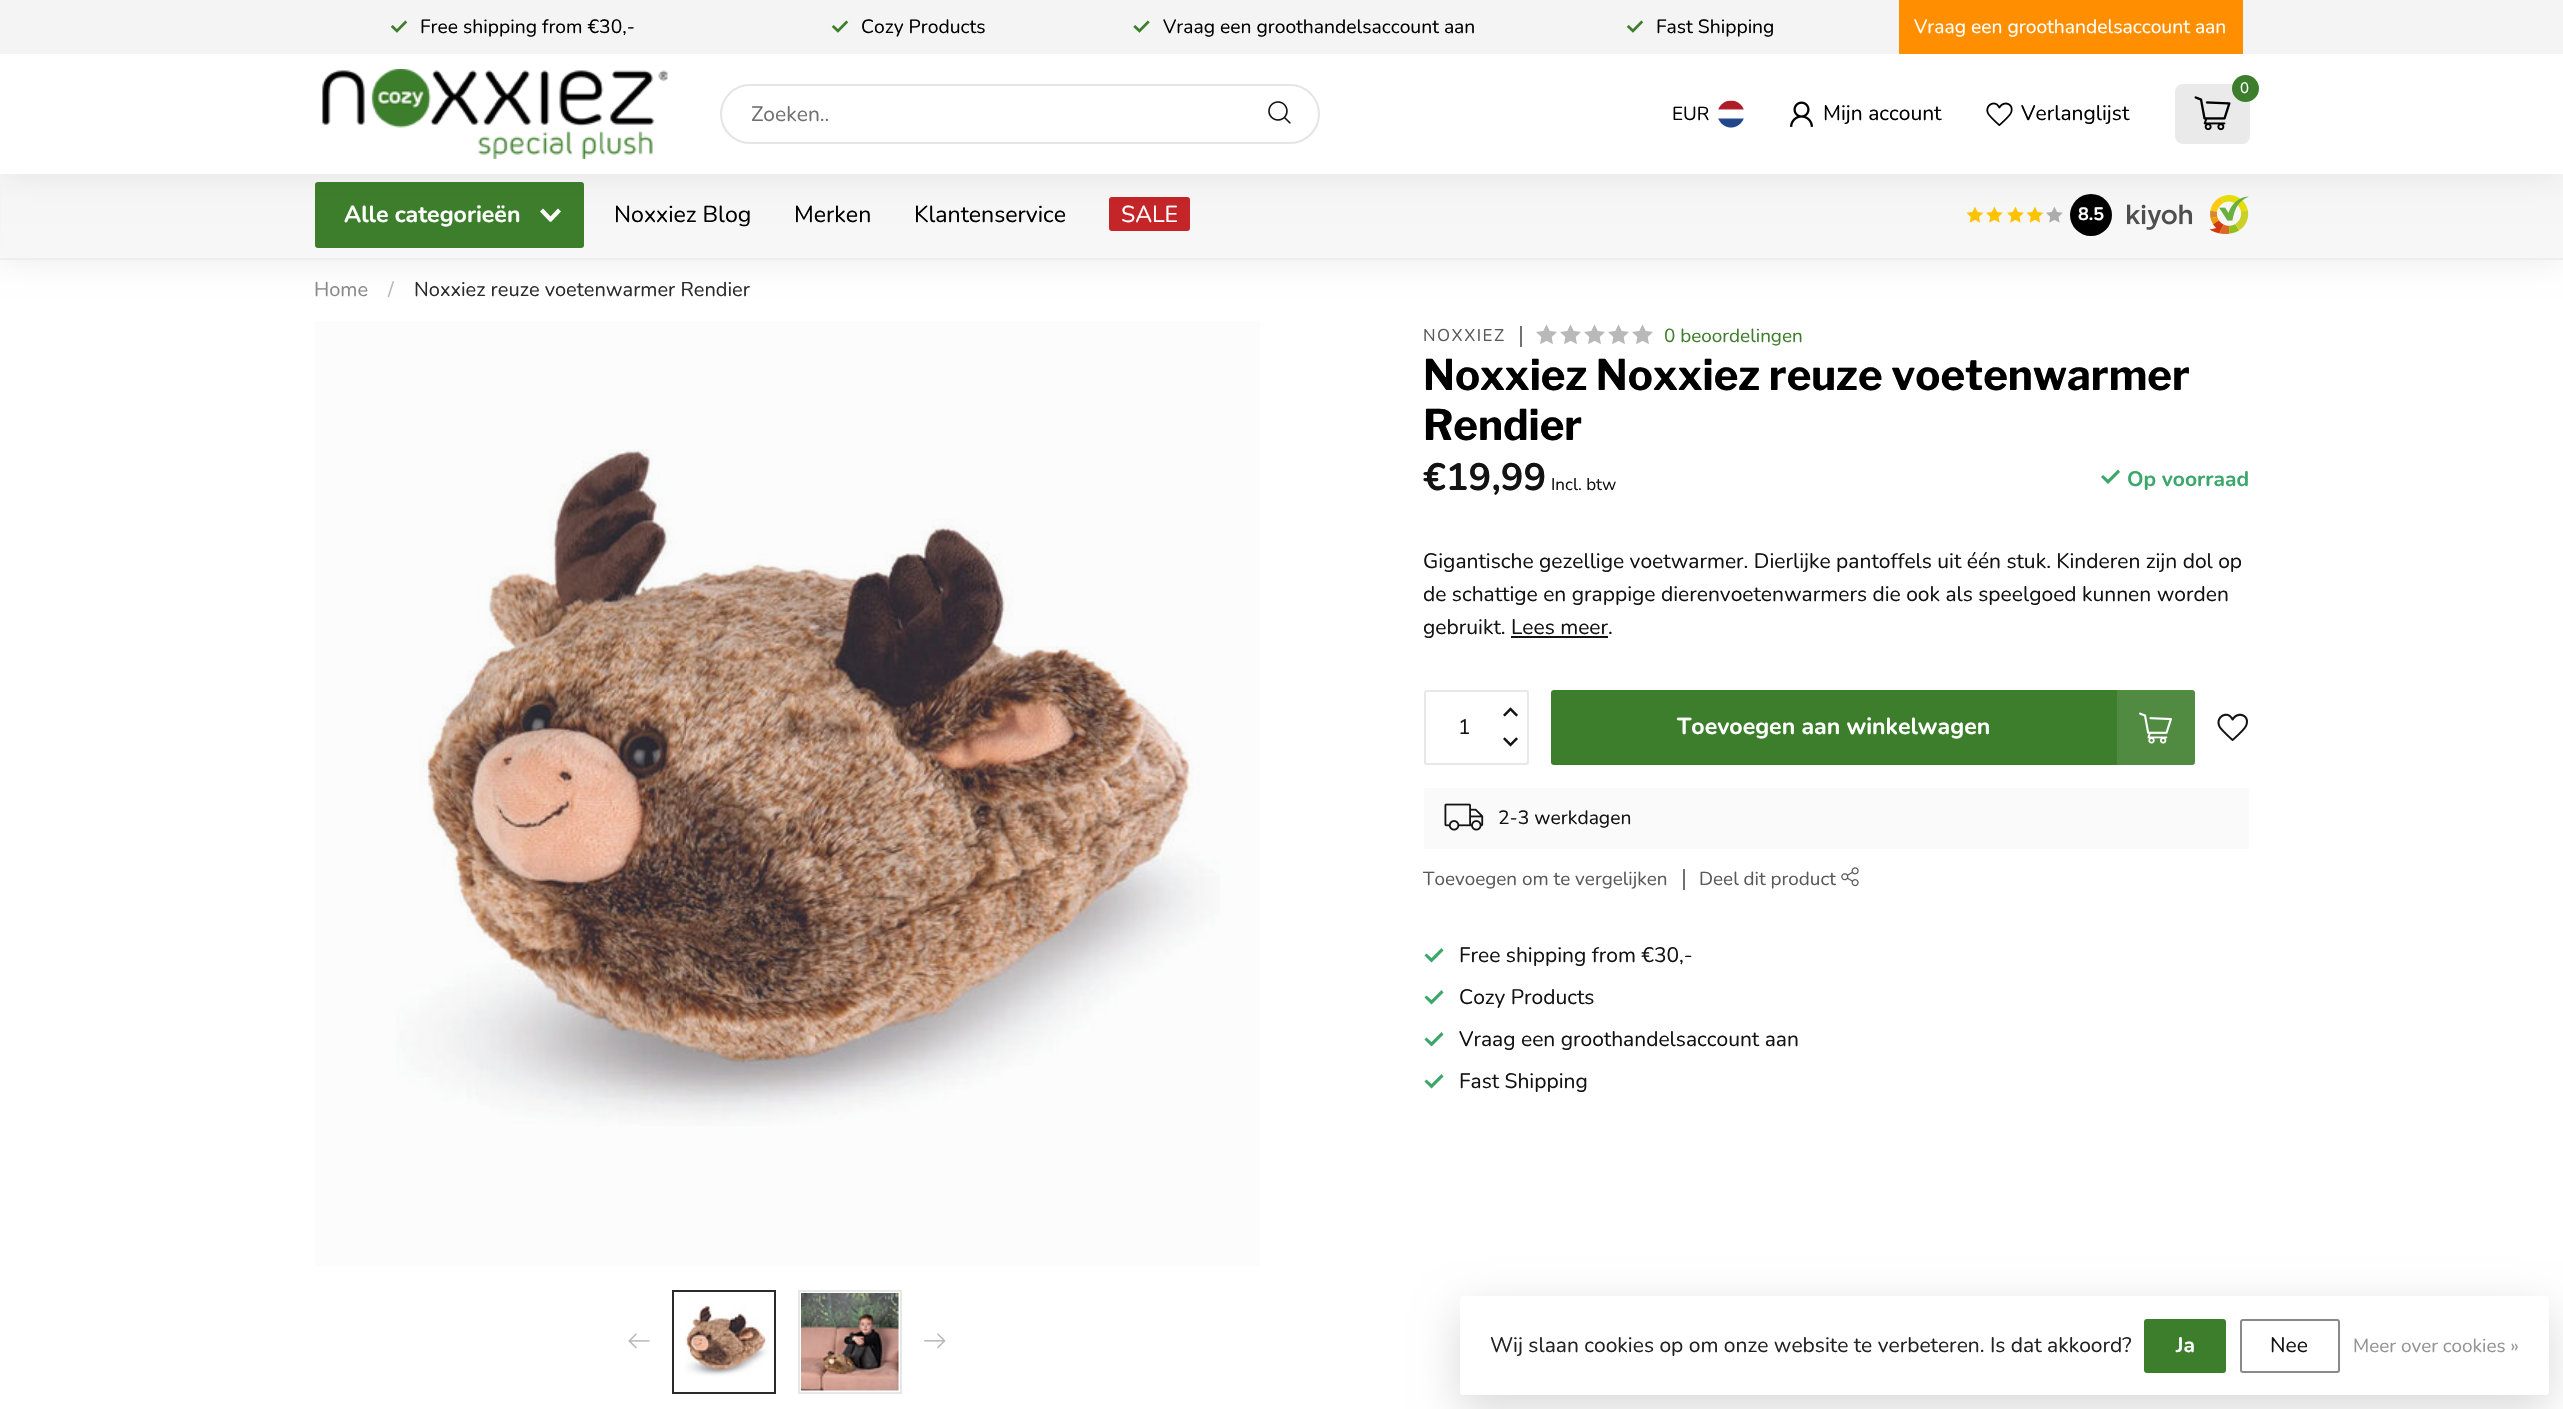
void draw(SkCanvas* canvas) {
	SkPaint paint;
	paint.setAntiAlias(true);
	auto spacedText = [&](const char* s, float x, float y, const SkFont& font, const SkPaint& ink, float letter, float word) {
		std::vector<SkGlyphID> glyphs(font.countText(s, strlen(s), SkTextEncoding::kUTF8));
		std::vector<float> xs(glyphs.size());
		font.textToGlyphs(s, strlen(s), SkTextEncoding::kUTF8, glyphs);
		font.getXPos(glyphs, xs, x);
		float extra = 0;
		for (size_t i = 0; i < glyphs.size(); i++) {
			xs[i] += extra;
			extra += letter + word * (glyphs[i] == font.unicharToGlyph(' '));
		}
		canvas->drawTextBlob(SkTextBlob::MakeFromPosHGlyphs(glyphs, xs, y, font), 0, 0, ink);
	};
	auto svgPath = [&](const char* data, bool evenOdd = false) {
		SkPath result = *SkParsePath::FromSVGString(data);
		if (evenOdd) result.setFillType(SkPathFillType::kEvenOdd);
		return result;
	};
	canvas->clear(0xffffffff);
	paint.setColor(0xfffcfcfc);
	canvas->drawRect(SkRect::MakeXYWH(315, 321, 945, 945), paint);
	paint.setColor(0x14000000);
	paint.setMaskFilter(SkMaskFilter::MakeBlur(kNormal_SkBlurStyle, 16.5));
	canvas->drawRect(SkRect::MakeXYWH(0, 171, 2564, 89), paint);
	paint.setMaskFilter(nullptr);
	paint.setColor(0xfff7f7f7);
	canvas->drawRect(SkRect::MakeXYWH(1, 174, 2562, 84), paint);
	paint.setColor(0xff3d7e2c);
	canvas->drawRoundRect(SkRect::MakeXYWH(315, 182, 269, 66), 3, 3, paint);
	paint.setColor(0xffffffff);
	canvas->drawPath(svgPath("M543 208.5L553 219L550 222L540 211.5Z"), paint);
	canvas->drawPath(svgPath("M548 219L558 208.5L561 211.5L551 222Z"), paint);
	paint.setColor(0xffc42528);
	canvas->drawRoundRect(SkRect::MakeXYWH(1109, 197, 81, 34), 3, 3, paint);
	canvas->drawImageRect(SkImages::DeferredFromEncodedData(SkData::MakeFromFileName("img9.png")), SkRect::MakeXYWH(1966, 206, 18, 17), SkSamplingOptions());
	canvas->drawImageRect(SkImages::DeferredFromEncodedData(SkData::MakeFromFileName("img10.png")), SkRect::MakeXYWH(1986, 206, 17, 17), SkSamplingOptions());
	canvas->drawImageRect(SkImages::DeferredFromEncodedData(SkData::MakeFromFileName("img10.png")), SkRect::MakeXYWH(2007, 206, 17, 17), SkSamplingOptions());
	canvas->drawImageRect(SkImages::DeferredFromEncodedData(SkData::MakeFromFileName("img9.png")), SkRect::MakeXYWH(2026, 206, 18, 17), SkSamplingOptions());
	canvas->drawImageRect(SkImages::DeferredFromEncodedData(SkData::MakeFromFileName("img11.png")), SkRect::MakeXYWH(2046, 207, 17, 16), SkSamplingOptions());
	paint.setColor(0xff000000);
	canvas->drawCircle(2091, 215, 21, paint);
	canvas->drawImageRect(SkImages::DeferredFromEncodedData(SkData::MakeFromFileName("img12.png")), SkRect::MakeXYWH(2127, 195, 122, 39), SkSamplingOptions());
	paint.setColor(0x14000000);
	paint.setMaskFilter(SkMaskFilter::MakeBlur(kNormal_SkBlurStyle, 16.5));
	canvas->drawRect(SkRect::MakeXYWH(0, 0, 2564, 174), paint);
	paint.setMaskFilter(nullptr);
	paint.setColor(0xffffffff);
	canvas->drawRect(SkRect::MakeXYWH(0, 54, 2563, 120), paint);
	paint.setColor(0xfff4f4f4);
	canvas->drawRect(SkRect::MakeXYWH(0, 0, 2563, 54), paint);
	canvas->drawImageRect(SkImages::DeferredFromEncodedData(SkData::MakeFromFileName("img1.png")), SkRect::MakeXYWH(390, 20, 18, 13), SkSamplingOptions());
	SkFont f1(fontMgr->matchFamilyStyle("Nunito", SkFontStyle::Normal()), 19.3);
	f1.setSubpixel(true);
	paint.setColor(0xff000000);
	canvas->drawString("Free shipping from €30,-", 420, 33, f1, paint);
	canvas->drawImageRect(SkImages::DeferredFromEncodedData(SkData::MakeFromFileName("img1.png")), SkRect::MakeXYWH(831, 20, 18, 13), SkSamplingOptions());
	canvas->drawString("Cozy Products", 861, 33, f1, paint);
	canvas->drawImageRect(SkImages::DeferredFromEncodedData(SkData::MakeFromFileName("img2.png")), SkRect::MakeXYWH(1133, 20, 17, 13), SkSamplingOptions());
	canvas->drawString("Vraag een groothandelsaccount aan", 1163, 33, f1, paint);
	canvas->drawImageRect(SkImages::DeferredFromEncodedData(SkData::MakeFromFileName("img1.png")), SkRect::MakeXYWH(1626, 20, 18, 13), SkSamplingOptions());
	canvas->drawString("Fast Shipping", 1656, 33, f1, paint);
	paint.setColor(0xffff8f00);
	canvas->drawRect(SkRect::MakeXYWH(1899, 0, 344, 54), paint);
	paint.setColor(0xffffffff);
	canvas->drawString("Vraag een groothandelsaccount aan", 1914, 33, f1, paint);
	canvas->drawImageRect(SkImages::DeferredFromEncodedData(SkData::MakeFromFileName("img3.png")), SkRect::MakeXYWH(322, 69, 346, 90), SkSamplingOptions());
	paint.setStroke(true);
	paint.setStrokeWidth(2);
	paint.setColor(0xffe5e5e5);
	canvas->drawRoundRect(SkRect::MakeXYWH(721, 85, 598, 58), 29, 29, paint);
	canvas->save();
	canvas->clipRect(SkRect::MakeXYWH(752, 101, 549, 28));
	SkFont f2(fontMgr->matchFamilyStyle("Nunito", SkFontStyle::Normal()), 21);
	f2.setSubpixel(true);
	paint.setStroke(false);
	paint.setColor(0xff717171);
	canvas->drawString("Zoeken..", 751, 121, f2, paint);
	canvas->restore();
	canvas->drawImageRect(SkImages::DeferredFromEncodedData(SkData::MakeFromFileName("img4.png")), SkRect::MakeXYWH(1268, 101, 23, 23), SkSamplingOptions());
	paint.setColor(0xffeaeaea);
	canvas->drawRoundRect(SkRect::MakeXYWH(2175, 84, 75, 60), 8, 8, paint);
	paint.setColor(0xff3d7e2c);
	canvas->drawCircle(2245.5, 88.5, 13.5, paint);
	SkFont f3(fontMgr->matchFamilyStyle("Nunito", SkFontStyle::Normal()), 15);
	f3.setSubpixel(true);
	paint.setColor(0xffffffff);
	canvas->drawString("0", 2240, 93, f3, paint);
	canvas->drawImageRect(SkImages::DeferredFromEncodedData(SkData::MakeFromFileName("img5.png")), SkRect::MakeXYWH(2194, 96, 37, 35), SkSamplingOptions());
	SkFont f4(fontMgr->matchFamilyStyle("Nunito", SkFontStyle::Normal()), 18.9);
	f4.setSubpixel(true);
	paint.setColor(0xff000000);
	canvas->drawString("EUR", 1672, 120, f4, paint);
	canvas->drawImageRect(SkImages::DeferredFromEncodedData(SkData::MakeFromFileName("img6.png")), SkRect::MakeXYWH(1718, 100, 26, 28), SkSamplingOptions());
	canvas->drawImageRect(SkImages::DeferredFromEncodedData(SkData::MakeFromFileName("img7.png")), SkRect::MakeXYWH(1790, 101, 23, 26), SkSamplingOptions());
	canvas->drawString("Mijn account", 1823, 120, f2, paint);
	canvas->drawImageRect(SkImages::DeferredFromEncodedData(SkData::MakeFromFileName("img8.png")), SkRect::MakeXYWH(1986, 102, 27, 24), SkSamplingOptions());
	canvas->drawString("Verlanglijst", 2021, 120, f2, paint);
	paint.setColor(0xffeeeeee);
	canvas->drawRect(SkRect::MakeXYWH(0, 258, 2563, 2), paint);
	SkFont f5(fontMgr->matchFamilyStyle("Nunito", SkFontStyle::Bold()), 23.1);
	f5.setSubpixel(true);
	paint.setColor(0xffffffff);
	canvas->drawString("Alle categorieën", 344, 222, f5, paint);
	SkFont f6(fontMgr->matchFamilyStyle("Nunito", SkFontStyle::Normal()), 23.1);
	f6.setSubpixel(true);
	paint.setColor(0xff000000);
	canvas->drawString("Noxxiez Blog", 614, 222, f6, paint);
	canvas->drawString("Merken", 794, 222, f6, paint);
	canvas->drawString("Klantenservice", 914, 222, f6, paint);
	paint.setColor(0xffffffff);
	canvas->drawString("SALE", 1121, 222, f6, paint);
	SkFont f7(fontMgr->matchFamilyStyle("Nunito", SkFontStyle::Bold()), 18);
	f7.setSubpixel(true);
	canvas->drawString("8.5", 2078, 220, f7, paint);
	SkFont f8(fontMgr->matchFamilyStyle("Nunito", SkFontStyle::Normal()), 20);
	f8.setSubpixel(true);
	paint.setColor(0xff898989);
	canvas->drawString("Home", 314, 296, f8, paint);
	paint.setColor(0xffb8b8b8);
	canvas->drawString("/", 388, 296, f8, paint);
	paint.setColor(0xff2b2b2b);
	canvas->drawString("Noxxiez reuze voetenwarmer Rendier", 414, 296, f8, paint);
	canvas->drawImageRect(SkImages::DeferredFromEncodedData(SkData::MakeFromFileName("img13.png")), SkRect::MakeXYWH(396, 449, 824, 677), SkSamplingOptions());
	canvas->drawImageRect(SkImages::DeferredFromEncodedData(SkData::MakeFromFileName("img14.png")), SkRect::MakeXYWH(628, 1333, 22, 16), SkSamplingOptions());
	paint.setStroke(true);
	paint.setColor(0xff2a2a2a);
	canvas->drawRect(SkRect::MakeXYWH(673, 1291, 102, 102), paint);
	canvas->drawImageRect(SkImages::DeferredFromEncodedData(SkData::MakeFromFileName("img15.png")), SkRect::MakeXYWH(684, 1305, 87, 72), SkSamplingOptions());
	paint.setColor(0xffe7e7e7);
	canvas->drawRect(SkRect::MakeXYWH(799, 1291, 102, 102), paint);
	canvas->drawImageRect(SkImages::DeferredFromEncodedData(SkData::MakeFromFileName("img16.png")), SkRect::MakeXYWH(801, 1293, 98, 98), SkSamplingOptions());
	canvas->drawImageRect(SkImages::DeferredFromEncodedData(SkData::MakeFromFileName("img17.png")), SkRect::MakeXYWH(924, 1333, 22, 16), SkSamplingOptions());
	SkFont f9(fontMgr->matchFamilyStyle("Nunito", SkFontStyle::Normal()), 17);
	f9.setSubpixel(true);
	paint.setStroke(false);
	paint.setColor(0xff5a5a5a);
	spacedText("NOXXIEZ", 1423, 341, f9, paint, 1.5, 0);
	paint.setColor(0xff717171);
	canvas->drawRect(SkRect::MakeXYWH(1520, 326, 2, 21), paint);
	canvas->drawImageRect(SkImages::DeferredFromEncodedData(SkData::MakeFromFileName("img18.png")), SkRect::MakeXYWH(1536, 324, 21, 21), SkSamplingOptions());
	canvas->drawImageRect(SkImages::DeferredFromEncodedData(SkData::MakeFromFileName("img18.png")), SkRect::MakeXYWH(1560, 324, 21, 21), SkSamplingOptions());
	canvas->drawImageRect(SkImages::DeferredFromEncodedData(SkData::MakeFromFileName("img18.png")), SkRect::MakeXYWH(1584, 324, 21, 21), SkSamplingOptions());
	canvas->drawImageRect(SkImages::DeferredFromEncodedData(SkData::MakeFromFileName("img18.png")), SkRect::MakeXYWH(1608, 324, 21, 21), SkSamplingOptions());
	canvas->drawImageRect(SkImages::DeferredFromEncodedData(SkData::MakeFromFileName("img18.png")), SkRect::MakeXYWH(1632, 324, 21, 21), SkSamplingOptions());
	paint.setColor(0xff3d7e2c);
	canvas->drawString("0 beoordelingen", 1664, 342, f4, paint);
	SkFont f10(fontMgr->matchFamilyStyle("Libre Franklin", SkFontStyle::Bold()), 42);
	f10.setSubpixel(true);
	paint.setColor(0xff000000);
	canvas->drawString("Noxxiez Noxxiez reuze voetenwarmer", 1423, 390, f10, paint);
	canvas->drawString("Rendier", 1423, 440, f10, paint);
	SkFont f11(fontMgr->matchFamilyStyle("Nunito", SkFontStyle::Bold()), 38);
	f11.setSubpixel(true);
	paint.setColor(0xff131313);
	canvas->drawString("€19,99", 1423, 490, f11, paint);
	canvas->drawString("Incl. btw", 1551, 490, f9, paint);
	paint.setColor(0xff3ca76b);
	canvas->drawPath(svgPath("M2108 484L2101 477L2103 475L2108 479.5L2118 469.5L2120 472Z"), paint);
	SkFont f12(fontMgr->matchFamilyStyle("Nunito", SkFontStyle::Bold()), 21);
	f12.setSubpixel(true);
	canvas->drawString("Op voorraad", 2127, 486, f12, paint);
	paint.setColor(0xff131313);
	canvas->drawString("Gigantische gezellige voetwarmer. Dierlijke pantoffels uit één stuk. Kinderen zijn dol op", 1423, 568, f2, paint);
	canvas->drawString("de schattige en grappige dierenvoetenwarmers die ook als speelgoed kunnen worden", 1423, 601, f2, paint);
	canvas->drawString("gebruikt. Lees meer.", 1423, 634, f2, paint);
	canvas->drawRect(SkRect::MakeXYWH(1511, 636, 97, 2), paint);
	paint.setStroke(true);
	paint.setColor(0xffe8e8e8);
	canvas->drawRoundRect(SkRect::MakeXYWH(1425, 691, 103, 73), 2, 2, paint);
	canvas->drawImageRect(SkImages::DeferredFromEncodedData(SkData::MakeFromFileName("img19.png")), SkRect::MakeXYWH(1503, 707, 15, 10), SkSamplingOptions());
	paint.setStroke(false);
	paint.setColor(0xff131313);
	canvas->drawString("1", 1458, 734, f2, paint);
	canvas->drawImageRect(SkImages::DeferredFromEncodedData(SkData::MakeFromFileName("img20.png")), SkRect::MakeXYWH(1503, 737, 15, 10), SkSamplingOptions());
	paint.setColor(0xff3d7e2c);
	canvas->drawRoundRect(SkRect::MakeXYWH(1551, 690, 644, 75), 3, 3, paint);
	paint.setColor(0xffffffff);
	canvas->drawString("Toevoegen aan winkelwagen", 1677, 734, f5, paint);
	canvas->drawImageRect(SkImages::DeferredFromEncodedData(SkData::MakeFromFileName("img21.png")), SkRect::MakeXYWH(2139, 712, 33, 32), SkSamplingOptions());
	paint.setColor(0x1affffff);
	canvas->drawRect(SkRect::MakeXYWH(2117, 690, 78, 75), paint);
	canvas->drawImageRect(SkImages::DeferredFromEncodedData(SkData::MakeFromFileName("img22.png")), SkRect::MakeXYWH(2217, 713, 31, 28), SkSamplingOptions());
	paint.setColor(0xfffafafa);
	canvas->drawRoundRect(SkRect::MakeXYWH(1424, 788, 825, 61), 3, 3, paint);
	canvas->drawImageRect(SkImages::DeferredFromEncodedData(SkData::MakeFromFileName("img23.png")), SkRect::MakeXYWH(1444, 803, 40, 28), SkSamplingOptions());
	paint.setColor(0xff131313);
	canvas->drawString("2-3 werkdagen", 1498, 824, f1, paint);
	paint.setColor(0xff5a5a5a);
	canvas->drawString("Toevoegen om te vergelijken", 1423, 885, f4, paint);
	paint.setColor(0xff717171);
	canvas->drawRect(SkRect::MakeXYWH(1683, 869, 2, 21), paint);
	paint.setColor(0xff5a5a5a);
	canvas->drawString("Deel dit product", 1699, 885, f4, paint);
	canvas->drawImageRect(SkImages::DeferredFromEncodedData(SkData::MakeFromFileName("img24.png")), SkRect::MakeXYWH(1841, 867, 18, 20), SkSamplingOptions());
	paint.setColor(0xff3ca76b);
	canvas->drawPath(svgPath("M1431.5 962.5L1424.5 955.5L1426.5 953.5L1431.5 958L1441.5 948L1443.5 950.5Z"), paint);
	paint.setColor(0xff131313);
	canvas->drawString("Free shipping from €30,-", 1459, 962, f2, paint);
	paint.setColor(0xff3ca76b);
	canvas->drawPath(svgPath("M1431.5 1004.5L1424.5 997.5L1426.5 995.5L1431.5 1000L1441.5 990L1443.5 992.5Z"), paint);
	paint.setColor(0xff131313);
	canvas->drawString("Cozy Products", 1459, 1004, f2, paint);
	paint.setColor(0xff3ca76b);
	canvas->drawPath(svgPath("M1431.5 1046.5L1424.5 1039.5L1426.5 1037.5L1431.5 1042L1441.5 1032L1443.5 1034.5Z"), paint);
	paint.setColor(0xff131313);
	canvas->drawString("Vraag een groothandelsaccount aan", 1459, 1046, f2, paint);
	paint.setColor(0xff3ca76b);
	canvas->drawPath(svgPath("M1431.5 1088.5L1424.5 1081.5L1426.5 1079.5L1431.5 1084L1441.5 1074L1443.5 1076.5Z"), paint);
	paint.setColor(0xff131313);
	canvas->drawString("Fast Shipping", 1459, 1088, f2, paint);
	paint.setColor(0x26000000);
	paint.setMaskFilter(SkMaskFilter::MakeBlur(kNormal_SkBlurStyle, 22.5));
	canvas->drawRoundRect(SkRect::MakeXYWH(1460, 1311, 1089, 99), 3, 3, paint);
	paint.setMaskFilter(nullptr);
	paint.setColor(0xffffffff);
	canvas->drawRoundRect(SkRect::MakeXYWH(1460, 1296, 1089, 99), 3, 3, paint);
	paint.setColor(0xff222222);
	canvas->drawString("Wij slaan cookies op om onze website te verbeteren. Is dat akkoord?", 1490, 1352, f2, paint);
	paint.setColor(0xff3d7e2c);
	canvas->drawRoundRect(SkRect::MakeXYWH(2144, 1319, 82, 54), 3, 3, paint);
	paint.setColor(0xffffffff);
	canvas->drawString("Ja", 2176, 1352, f12, paint);
	paint.setStroke(true);
	paint.setColor(0xff898989);
	canvas->drawRoundRect(SkRect::MakeXYWH(2241, 1320, 98, 52), 2, 2, paint);
	paint.setStroke(false);
	paint.setColor(0xff131313);
	canvas->drawString("Nee", 2270, 1352, f2, paint);
	paint.setColor(0xff949494);
	canvas->drawString("Meer over cookies »", 2353, 1352, f4, paint);
}
